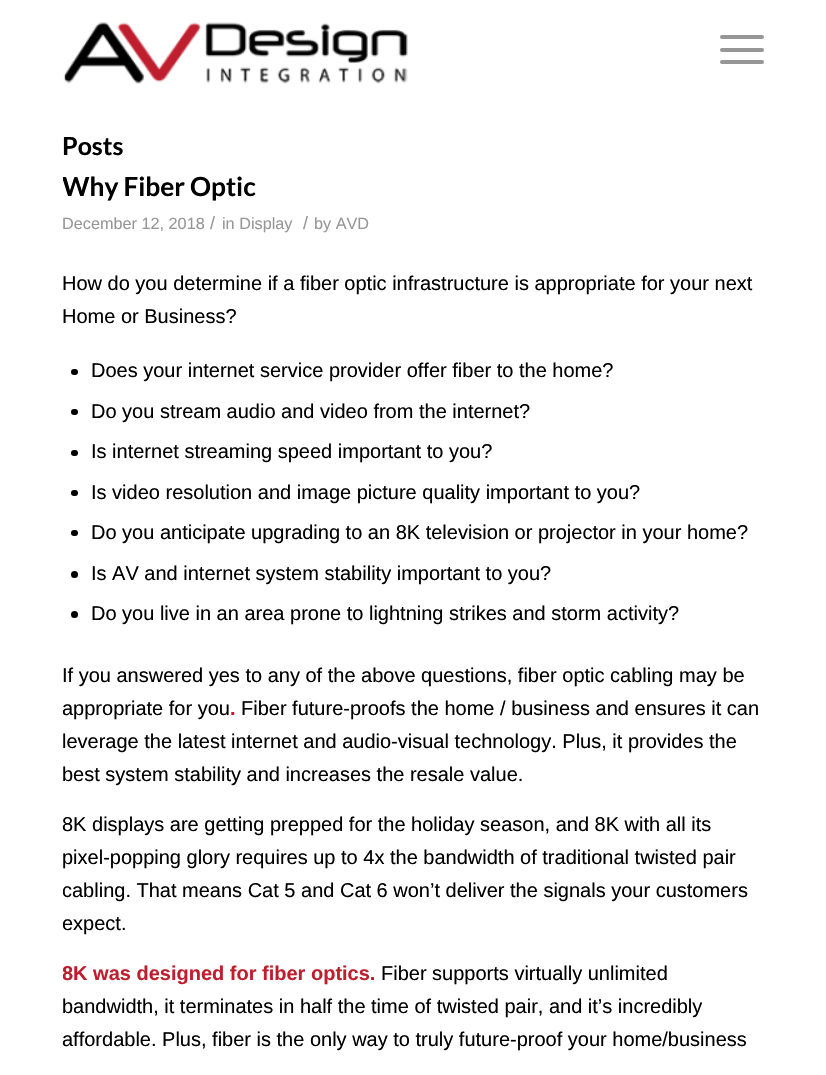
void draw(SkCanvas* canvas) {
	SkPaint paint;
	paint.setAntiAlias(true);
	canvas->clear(0xffffffff);
	canvas->drawImageRect(SkImages::DeferredFromEncodedData(SkData::MakeFromFileName("img1.png")), SkRect::MakeXYWH(63, 22, 345, 62), SkSamplingOptions());
	paint.setColor(0xff969696);
	canvas->drawRoundRect(SkRect::MakeXYWH(720, 48, 44, 4), 2, 2, paint);
	canvas->drawRoundRect(SkRect::MakeXYWH(720, 35, 44, 4), 2, 2, paint);
	canvas->drawRoundRect(SkRect::MakeXYWH(720, 60, 44, 4), 2, 2, paint);
	SkFont f1(fontMgr->matchFamilyStyle("Lato", SkFontStyle::Bold()), 25);
	f1.setSubpixel(true);
	paint.setColor(0xff000000);
	canvas->drawString("Posts", 62, 155, f1, paint);
	canvas->save();
	canvas->clipRect(SkRect::MakeXYWH(63, 169, 701, 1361));
	SkFont f2(fontMgr->matchFamilyStyle("Lato", SkFontStyle::Bold()), 26.25);
	f2.setSubpixel(true);
	canvas->drawString("Why Fiber Optic", 62, 196, f2, paint);
	canvas->restore();
	SkFont f3(fontMgr->matchFamilyStyle("Liberation Sans", SkFontStyle::Normal()), 16.25);
	f3.setSubpixel(true);
	paint.setColor(0xff969696);
	canvas->drawString("December 12, 2018", 62, 229, f3, paint);
	SkFont f4(fontMgr->matchFamilyStyle("Liberation Sans", SkFontStyle::Normal()), 18);
	f4.setSubpixel(true);
	canvas->drawString("/", 210, 229, f4, paint);
	canvas->drawString("in Display", 222, 229, f3, paint);
	canvas->drawString("/", 303, 229, f4, paint);
	canvas->drawString("by AVD", 314, 229, f3, paint);
	SkFont f5(fontMgr->matchFamilyStyle("Liberation Sans", SkFontStyle::Normal()), 20);
	f5.setSubpixel(true);
	paint.setColor(0xff000000);
	canvas->drawString("How do you determine if a fiber optic infrastructure is appropriate for your next", 62, 290, f5, paint);
	canvas->drawString("Home or Business?", 62, 323, f5, paint);
	canvas->drawRoundRect(SkRect::MakeXYWH(71, 369, 7, 6), 3, 3, paint);
	canvas->drawString("Does your internet service provider offer fiber to the home?", 91, 377, f5, paint);
	canvas->drawRoundRect(SkRect::MakeXYWH(71, 409, 7, 6), 3, 3, paint);
	canvas->drawString("Do you stream audio and video from the internet?", 91, 418, f5, paint);
	canvas->drawRoundRect(SkRect::MakeXYWH(71, 450, 7, 6), 3, 3, paint);
	canvas->drawString("Is internet streaming speed important to you?", 91, 458, f5, paint);
	canvas->drawRoundRect(SkRect::MakeXYWH(71, 490, 7, 6), 3, 3, paint);
	canvas->drawString("Is video resolution and image picture quality important to you?", 91, 499, f5, paint);
	canvas->drawRoundRect(SkRect::MakeXYWH(71, 530, 7, 6), 3, 3, paint);
	canvas->drawString("Do you anticipate upgrading to an 8K television or projector in your home?", 91, 539, f5, paint);
	canvas->drawCircle(74.5, 574.5, 3.5, paint);
	canvas->drawString("Is AV and internet system stability important to you?", 91, 580, f5, paint);
	canvas->drawCircle(74.5, 614.5, 3.5, paint);
	canvas->drawString("Do you live in an area prone to lightning strikes and storm activity?", 91, 620, f5, paint);
	canvas->drawString("If you answered yes to any of the above questions, fiber optic cabling may be", 62, 682, f5, paint);
	canvas->drawString("appropriate for you", 62, 715, f5, paint);
	SkFont f6(fontMgr->matchFamilyStyle("Liberation Sans", SkFontStyle::Bold()), 20);
	f6.setSubpixel(true);
	paint.setColor(0xffbf1e2e);
	canvas->drawString(".", 230, 715, f6, paint);
	paint.setColor(0xff000000);
	canvas->drawString("Fiber future-proofs the home / business and ensures it can", 241, 715, f5, paint);
	canvas->drawString("leverage the latest internet and audio-visual technology. Plus, it provides the", 62, 748, f5, paint);
	canvas->drawString("best system stability and increases the resale value.", 62, 781, f5, paint);
	canvas->drawString("8K displays are getting prepped for the holiday season, and 8K with all its", 62, 831, f5, paint);
	canvas->drawString("pixel-popping glory requires up to 4x the bandwidth of traditional twisted pair", 62, 864, f5, paint);
	canvas->save();
	canvas->clipRect(SkRect::MakeXYWH(63, 169, 701, 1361));
	canvas->drawString("cabling. That means Cat 5 and Cat 6 won’t deliver the signals your customers", 62, 897, f5, paint);
	canvas->drawString("expect.", 62, 930, f5, paint);
	paint.setColor(0xffbf1e2e);
	canvas->drawString("8K was designed for fiber optics.", 62, 980, f6, paint);
	canvas->restore();
	paint.setColor(0xff000000);
	canvas->drawString("Fiber supports virtually unlimited", 381, 980, f5, paint);
	canvas->drawString("bandwidth, it terminates in half the time of twisted pair, and it’s incredibly", 62, 1013, f5, paint);
	canvas->drawString("affordable. Plus, fiber is the only way to truly future-proof your home/business", 62, 1046, f5, paint);
}
